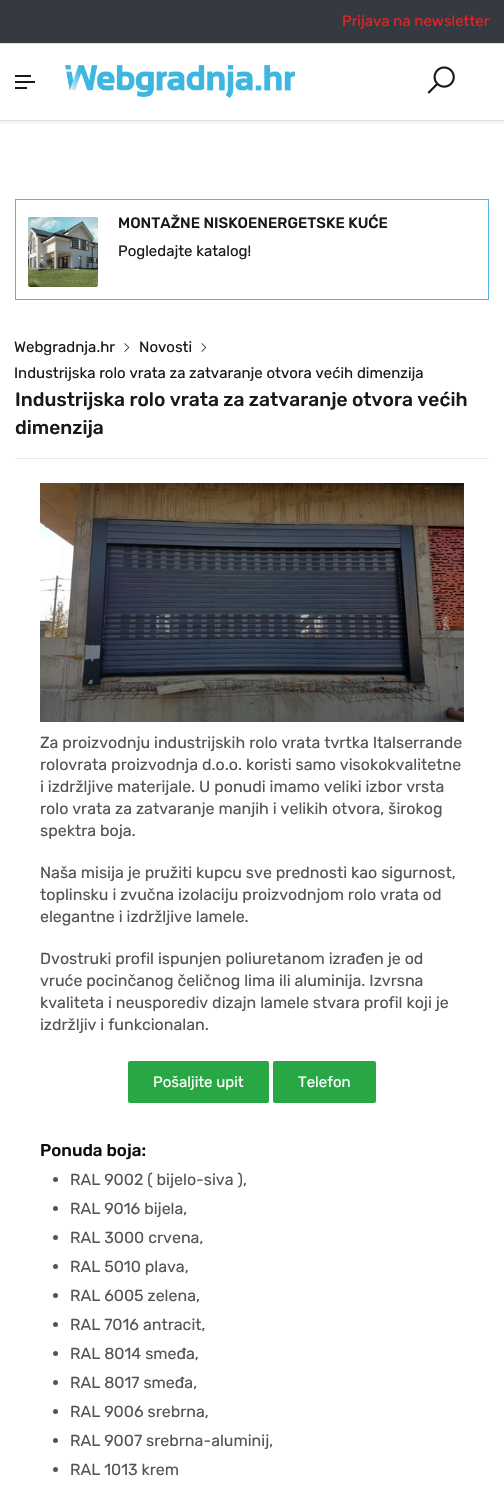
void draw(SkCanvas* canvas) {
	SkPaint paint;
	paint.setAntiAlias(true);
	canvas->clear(0xffffffff);
	paint.setColor(0xff343a40);
	canvas->drawRect(SkRect::MakeXYWH(0, 0, 504, 43), paint);
	paint.setColor(0xffe1e1e1);
	canvas->drawRect(SkRect::MakeXYWH(0, 43, 504, 1), paint);
	SkFont f1(fontMgr->matchFamilyStyle("Rubik", SkFontStyle::Normal()), 15);
	f1.setSubpixel(true);
	paint.setColor(0xffec2024);
	canvas->drawString("Prijava na newsletter", 342, 26, f1, paint);
	canvas->save();
	canvas->clipRect(SkRect::MakeXYWH(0, 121, 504, 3));
	paint.setColor(0x12000000);
	paint.setMaskFilter(SkMaskFilter::MakeBlur(kNormal_SkBlurStyle, 2));
	canvas->drawRect(SkRect::MakeXYWH(0, 46, 504, 77), paint);
	paint.setMaskFilter(nullptr);
	canvas->restore();
	paint.setColor(0xffe1e1e1);
	canvas->drawRect(SkRect::MakeXYWH(0, 120, 504, 1), paint);
	paint.setColor(0xff191919);
	canvas->drawRect(SkRect::MakeXYWH(15, 75, 16, 2), paint);
	canvas->drawRect(SkRect::MakeXYWH(15, 81, 20, 2), paint);
	canvas->drawRect(SkRect::MakeXYWH(15, 87, 12, 2), paint);
	canvas->drawImageRect(SkImages::DeferredFromEncodedData(SkData::MakeFromFileName("img1.png")), SkRect::MakeXYWH(65, 65, 230, 33), SkSamplingOptions());
	canvas->drawImageRect(SkImages::DeferredFromEncodedData(SkData::MakeFromFileName("img2.png")), SkRect::MakeXYWH(427, 66, 28, 28), SkSamplingOptions());
	paint.setStroke(true);
	paint.setStrokeWidth(1);
	paint.setColor(0xff53b3e3);
	canvas->drawRect(SkRect::MakeXYWH(15.5, 199.5, 473, 100), paint);
	canvas->drawImageRect(SkImages::DeferredFromEncodedData(SkData::MakeFromFileName("img3.png")), SkRect::MakeXYWH(28, 217, 70, 70), SkSamplingOptions());
	SkFont f2(fontMgr->matchFamilyStyle("Rubik", SkFontStyle(500, SkFontStyle::kNormal_Width, SkFontStyle::kUpright_Slant)), 15);
	f2.setSubpixel(true);
	paint.setStroke(false);
	paint.setColor(0xff191919);
	canvas->drawString("MONTAŽNE NISKOENERGETSKE KUĆE", 118, 228, f2, paint);
	canvas->drawString("Pogledajte katalog!", 118, 256, f1, paint);
	canvas->drawString("Webgradnja.hr", 14, 352, f1, paint);
	canvas->drawImageRect(SkImages::DeferredFromEncodedData(SkData::MakeFromFileName("img4.png")), SkRect::MakeXYWH(124, 343, 6, 9), SkSamplingOptions());
	canvas->drawString("Novosti", 139, 352, f1, paint);
	canvas->drawImageRect(SkImages::DeferredFromEncodedData(SkData::MakeFromFileName("img4.png")), SkRect::MakeXYWH(201, 343, 6, 9), SkSamplingOptions());
	canvas->drawString("Industrijska rolo vrata za zatvaranje otvora većih dimenzija", 14, 378, f1, paint);
	SkFont f3(fontMgr->matchFamilyStyle("Rubik", SkFontStyle(500, SkFontStyle::kNormal_Width, SkFontStyle::kUpright_Slant)), 19.2);
	f3.setSubpixel(true);
	canvas->drawString("Industrijska rolo vrata za zatvaranje otvora većih", 15, 406, f3, paint);
	canvas->drawString("dimenzija", 15, 434, f3, paint);
	paint.setColor(0xffe6e6e6);
	canvas->drawRect(SkRect::MakeXYWH(15, 458, 474, 1), paint);
	canvas->drawImageRect(SkImages::DeferredFromEncodedData(SkData::MakeFromFileName("img5.png")), SkRect::MakeXYWH(40, 483, 424, 239), SkSamplingOptions());
	SkFont f4(fontMgr->matchFamilyStyle("Rubik", SkFontStyle::Normal()), 16);
	f4.setSubpixel(true);
	paint.setColor(0xff555555);
	canvas->drawString("Za proizvodnju industrijskih rolo vrata tvrtka Italserrande", 40, 748, f4, paint);
	canvas->drawString("rolovrata proizvodnja d.o.o. koristi samo visokokvalitetne", 40, 770, f4, paint);
	canvas->drawString("i izdržljive materijale. U ponudi imamo veliki izbor vrsta", 40, 792, f4, paint);
	canvas->drawString("rolo vrata za zatvaranje manjih i velikih otvora, širokog", 40, 814, f4, paint);
	canvas->drawString("spektra boja.", 40, 836, f4, paint);
	canvas->drawString("Naša misija je pružiti kupcu sve prednosti kao sigurnost,", 40, 878, f4, paint);
	canvas->drawString("toplinsku i zvučna izolaciju proizvodnjom rolo vrata od", 40, 900, f4, paint);
	canvas->drawString("elegantne i izdržljive lamele.", 40, 922, f4, paint);
	canvas->drawString("Dvostruki profil ispunjen poliuretanom izrađen je od", 40, 964, f4, paint);
	canvas->drawString("vruće pocinčanog čeličnog lima ili aluminija. Izvrsna", 40, 986, f4, paint);
	canvas->drawString("kvaliteta i neusporediv dizajn lamele stvara profil koji je", 40, 1008, f4, paint);
	canvas->drawString("izdržljiv i funkcionalan.", 40, 1030, f4, paint);
	paint.setColor(0xff28a745);
	canvas->drawRoundRect(SkRect::MakeXYWH(128, 1061, 141, 42), 2, 2, paint);
	paint.setColor(0xffffffff);
	canvas->drawString("Pošaljite upit", 153, 1087, f1, paint);
	paint.setColor(0xff28a745);
	canvas->drawRoundRect(SkRect::MakeXYWH(273, 1061, 103, 42), 2, 2, paint);
	paint.setColor(0xffffffff);
	canvas->drawString("Telefon", 298, 1087, f1, paint);
	SkFont f5(fontMgr->matchFamilyStyle("Rubik", SkFontStyle(500, SkFontStyle::kNormal_Width, SkFontStyle::kUpright_Slant)), 17);
	f5.setSubpixel(true);
	paint.setColor(0xff0c0c0c);
	canvas->drawString("Ponuda boja:", 40, 1156, f5, paint);
	paint.setColor(0xff555555);
	canvas->drawCircle(55.5, 1179.5, 2.5, paint);
	canvas->drawString("RAL 9002 ( bijelo-siva ),", 70, 1185, f4, paint);
	canvas->drawCircle(55.5, 1208.5, 2.5, paint);
	canvas->drawString("RAL 9016 bijela,", 70, 1214, f4, paint);
	canvas->drawCircle(55.5, 1237.5, 2.5, paint);
	canvas->drawString("RAL 3000 crvena,", 70, 1243, f4, paint);
	canvas->drawCircle(55.5, 1266.5, 2.5, paint);
	canvas->drawString("RAL 5010 plava,", 70, 1272, f4, paint);
	canvas->drawCircle(55.5, 1295.5, 2.5, paint);
	canvas->drawString("RAL 6005 zelena,", 70, 1301, f4, paint);
	canvas->drawCircle(55.5, 1324.5, 2.5, paint);
	canvas->drawString("RAL 7016 antracit,", 70, 1330, f4, paint);
	canvas->drawCircle(55.5, 1353.5, 2.5, paint);
	canvas->drawString("RAL 8014 smeđa,", 70, 1359, f4, paint);
	canvas->drawCircle(55.5, 1382.5, 2.5, paint);
	canvas->drawString("RAL 8017 smeđa,", 70, 1388, f4, paint);
	canvas->drawCircle(55.5, 1411.5, 2.5, paint);
	canvas->drawString("RAL 9006 srebrna,", 70, 1417, f4, paint);
	canvas->drawCircle(55.5, 1440.5, 2.5, paint);
	canvas->drawString("RAL 9007 srebrna-aluminij,", 70, 1446, f4, paint);
	canvas->drawCircle(55.5, 1469.5, 2.5, paint);
	canvas->drawString("RAL 1013 krem", 70, 1475, f4, paint);
}
